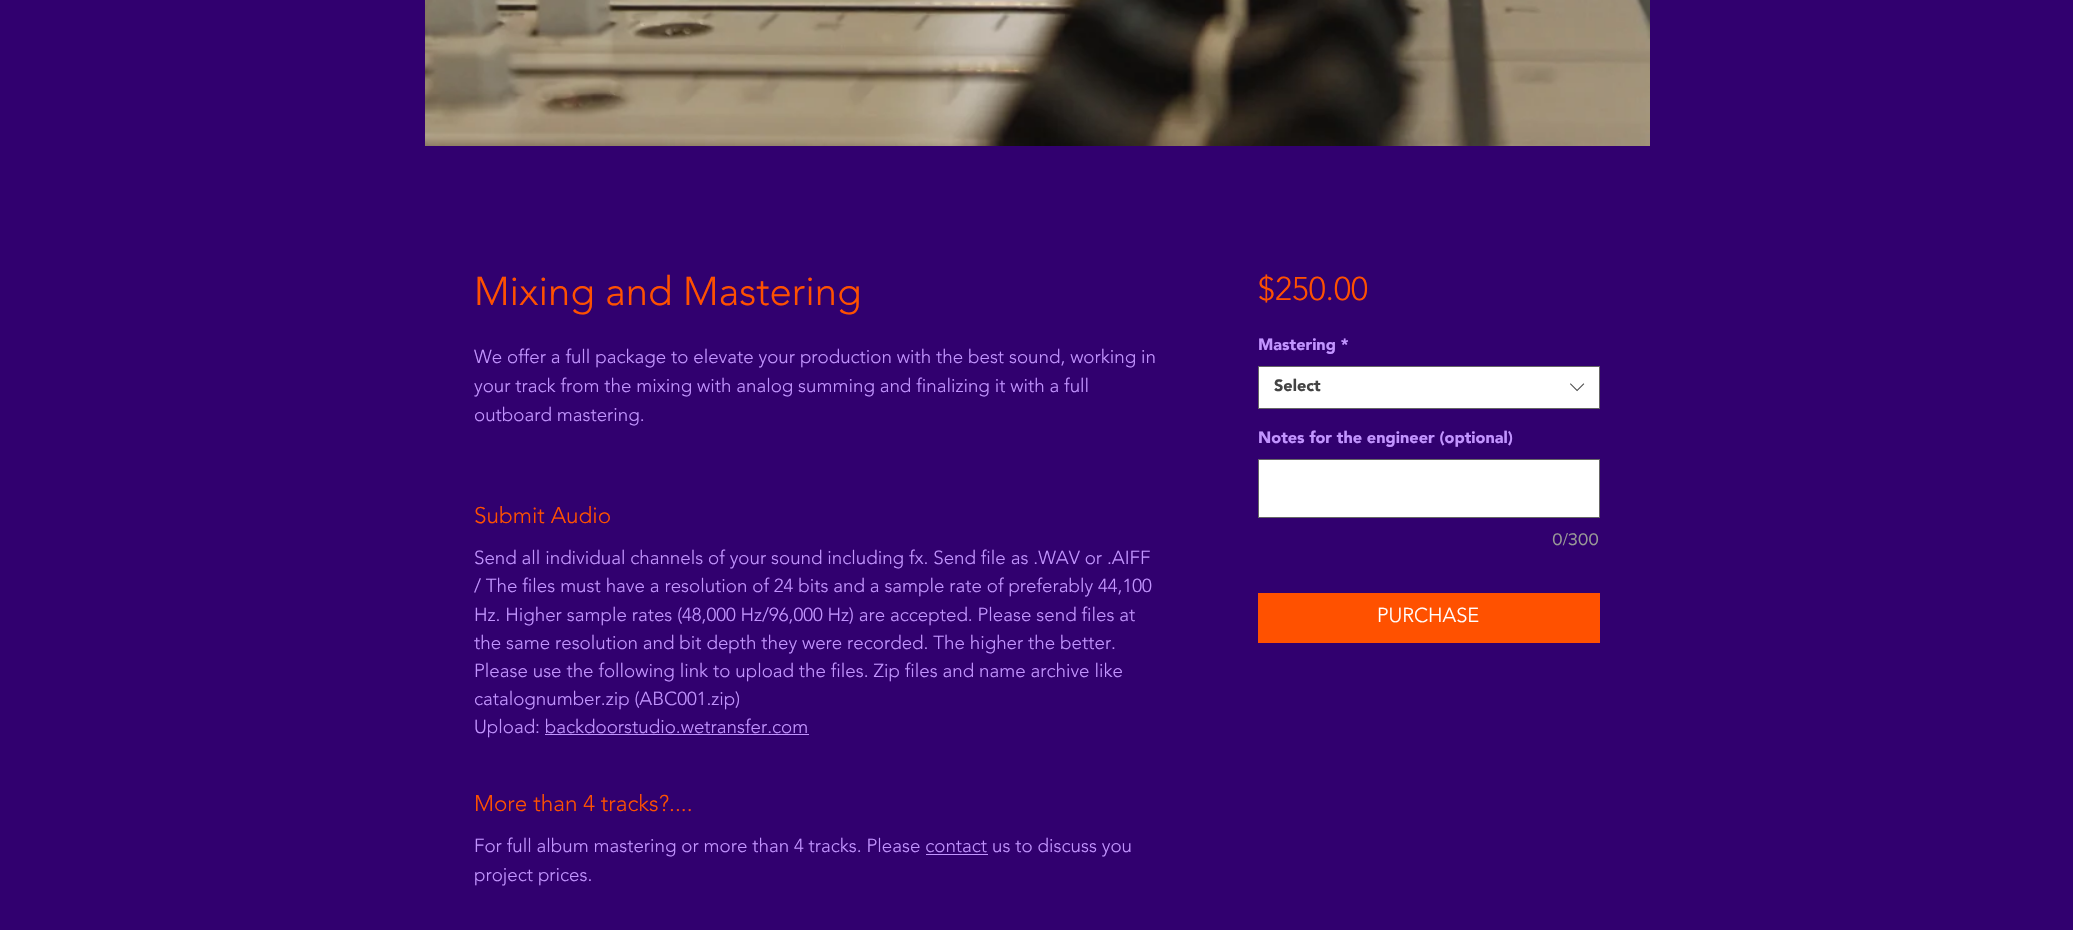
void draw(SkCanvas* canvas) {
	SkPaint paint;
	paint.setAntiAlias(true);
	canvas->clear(0xff31006f);
	canvas->drawImageRect(SkImages::DeferredFromEncodedData(SkData::MakeFromFileName("img1.png")), SkRect::MakeXYWH(425, 0, 1225, 146), SkSamplingOptions());
	SkFont f1(fontMgr->matchFamilyStyle("Avenir", SkFontStyle(300, SkFontStyle::kNormal_Width, SkFontStyle::kUpright_Slant)), 40);
	f1.setSubpixel(true);
	paint.setColor(0xffff5100);
	canvas->drawString("Mixing and Mastering", 474, 305, f1, paint);
	SkFont f2(fontMgr->matchFamilyStyle("Avenir", SkFontStyle(300, SkFontStyle::kNormal_Width, SkFontStyle::kUpright_Slant)), 18.75);
	f2.setSubpixel(true);
	paint.setColor(0xffc294ff);
	canvas->drawString("We offer a full package to elevate your production with the best sound, working in", 474, 363, f2, paint);
	canvas->drawString("your track from the mixing with analog summing and finalizing it with a full", 474, 392, f2, paint);
	canvas->drawString("outboard mastering.", 474, 421, f2, paint);
	SkFont f3(fontMgr->matchFamilyStyle("Avenir", SkFontStyle(300, SkFontStyle::kNormal_Width, SkFontStyle::kUpright_Slant)), 22.5);
	f3.setSubpixel(true);
	paint.setColor(0xffff5100);
	canvas->drawString("Submit Audio", 474, 523, f3, paint);
	paint.setColor(0xffc294ff);
	canvas->drawString("Send all individual channels of your sound including fx. Send file as .WAV or .AIFF", 474, 564, f2, paint);
	canvas->drawString("/ The files must have a resolution of 24 bits and a sample rate of preferably 44,100", 474, 592, f2, paint);
	canvas->drawString("Hz. Higher sample rates (48,000 Hz/96,000 Hz) are accepted. Please send files at", 474, 621, f2, paint);
	canvas->drawString("the same resolution and bit depth they were recorded. The higher the better.", 474, 649, f2, paint);
	canvas->drawString("Please use the following link to upload the files. Zip files and name archive like", 474, 677, f2, paint);
	canvas->drawString("catalognumber.zip (ABC001.zip)", 474, 705, f2, paint);
	canvas->drawString("Upload: backdoorstudio.wetransfer.com", 474, 733, f2, paint);
	canvas->drawRect(SkRect::MakeXYWH(545, 734, 264, 1), paint);
	paint.setColor(0xffff5100);
	canvas->drawString("More than 4 tracks?....", 474, 811, f3, paint);
	paint.setColor(0xffc294ff);
	canvas->drawString("For full album mastering or more than 4 tracks. Please contact us to discuss you", 474, 852, f2, paint);
	canvas->drawRect(SkRect::MakeXYWH(926, 854, 62, 1), paint);
	canvas->drawString("project prices.", 474, 881, f2, paint);
	SkFont f4(fontMgr->matchFamilyStyle("Avenir", SkFontStyle(300, SkFontStyle::kNormal_Width, SkFontStyle::kUpright_Slant)), 32.5);
	f4.setSubpixel(true);
	paint.setColor(0xffff5100);
	canvas->drawString("$250.00", 1258, 300, f4, paint);
	SkFont f5(fontMgr->matchFamilyStyle("Avenir", SkFontStyle(900, SkFontStyle::kNormal_Width, SkFontStyle::kUpright_Slant)), 16.25);
	f5.setSubpixel(true);
	paint.setColor(0xffc294ff);
	canvas->drawString("Mastering *", 1258, 350, f5, paint);
	paint.setColor(0xffffffff);
	canvas->drawRect(SkRect::MakeXYWH(1258.5, 366.5, 341, 42), paint);
	paint.setStroke(true);
	paint.setStrokeWidth(1);
	paint.setColor(0xff666666);
	canvas->drawRect(SkRect::MakeXYWH(1258.5, 366.5, 341, 42), paint);
	paint.setStroke(false);
	paint.setColor(0xff444444);
	canvas->drawString("Select", 1274, 391, f5, paint);
	canvas->drawImageRect(SkImages::DeferredFromEncodedData(SkData::MakeFromFileName("img2.png")), SkRect::MakeXYWH(1570, 383, 15, 9), SkSamplingOptions());
	paint.setColor(0xffc294ff);
	canvas->drawString("Notes for the engineer (optional)", 1258, 443, f5, paint);
	paint.setColor(0xffffffff);
	canvas->drawRect(SkRect::MakeXYWH(1258.5, 459.5, 341, 58), paint);
	paint.setStroke(true);
	paint.setColor(0xff666666);
	canvas->drawRect(SkRect::MakeXYWH(1258.5, 459.5, 341, 58), paint);
	SkFont f6(fontMgr->matchFamilyStyle("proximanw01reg", SkFontStyle::Normal()), 17.5);
	f6.setSubpixel(true);
	paint.setStroke(false);
	paint.setColor(0xff999997);
	canvas->drawString("0/300", 1552, 545, f6, paint);
	paint.setColor(0xffff5100);
	canvas->drawRect(SkRect::MakeXYWH(1258, 593, 342, 50), paint);
	SkFont f7(fontMgr->matchFamilyStyle("Avenir", SkFontStyle(300, SkFontStyle::kNormal_Width, SkFontStyle::kUpright_Slant)), 20);
	f7.setSubpixel(true);
	paint.setColor(0xffffffff);
	canvas->drawString("PURCHASE", 1377, 622, f7, paint);
}
